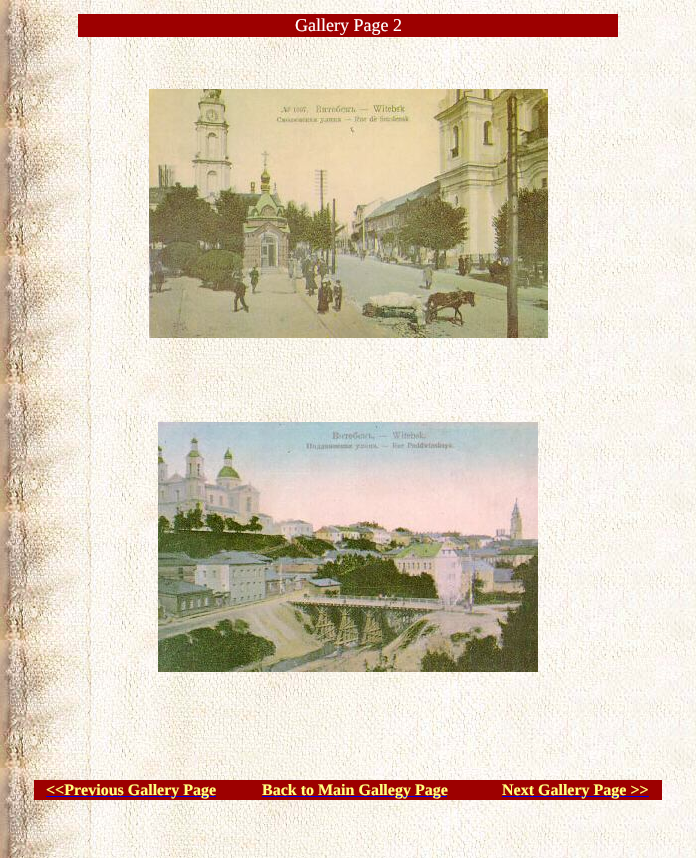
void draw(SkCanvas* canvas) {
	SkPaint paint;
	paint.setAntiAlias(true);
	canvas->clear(0xffffffff);
	canvas->drawImageRect(SkImages::DeferredFromEncodedData(SkData::MakeFromFileName("img1.png")), SkRect::MakeXYWH(0, 0, 696, 858), SkSamplingOptions());
	paint.setColor(0xff9d0000);
	canvas->drawRect(SkRect::MakeXYWH(78, 14, 540, 23), paint);
	SkFont f1(fontMgr->matchFamilyStyle("Liberation Serif", SkFontStyle::Normal()), 18);
	f1.setSubpixel(true);
	paint.setColor(0xffffffff);
	canvas->drawString("Gallery Page 2", 295, 31, f1, paint);
	canvas->drawImageRect(SkImages::DeferredFromEncodedData(SkData::MakeFromFileName("img2.png")), SkRect::MakeXYWH(149, 89, 399, 249), SkSamplingOptions());
	canvas->drawImageRect(SkImages::DeferredFromEncodedData(SkData::MakeFromFileName("img3.png")), SkRect::MakeXYWH(158, 422, 380, 250), SkSamplingOptions());
	paint.setColor(0xff9d0000);
	canvas->drawRect(SkRect::MakeXYWH(34, 780, 628, 20), paint);
	paint.setColor(0xff0000ee);
	canvas->drawRect(SkRect::MakeXYWH(46, 796, 170, 1), paint);
	SkFont f2(fontMgr->matchFamilyStyle("Liberation Serif", SkFontStyle::Bold()), 16);
	f2.setSubpixel(true);
	paint.setColor(0xffffff80);
	canvas->drawString("<<Previous Gallery Page", 46, 795, f2, paint);
	paint.setColor(0xff0000ee);
	canvas->drawRect(SkRect::MakeXYWH(262, 796, 185, 1), paint);
	paint.setColor(0xffffff80);
	canvas->drawString("Back to Main Gallegy Page", 262, 795, f2, paint);
	paint.setColor(0xff0000ee);
	canvas->drawRect(SkRect::MakeXYWH(502, 796, 147, 1), paint);
	paint.setColor(0xffffff80);
	canvas->drawString("Next Gallery Page >>", 502, 795, f2, paint);
}
